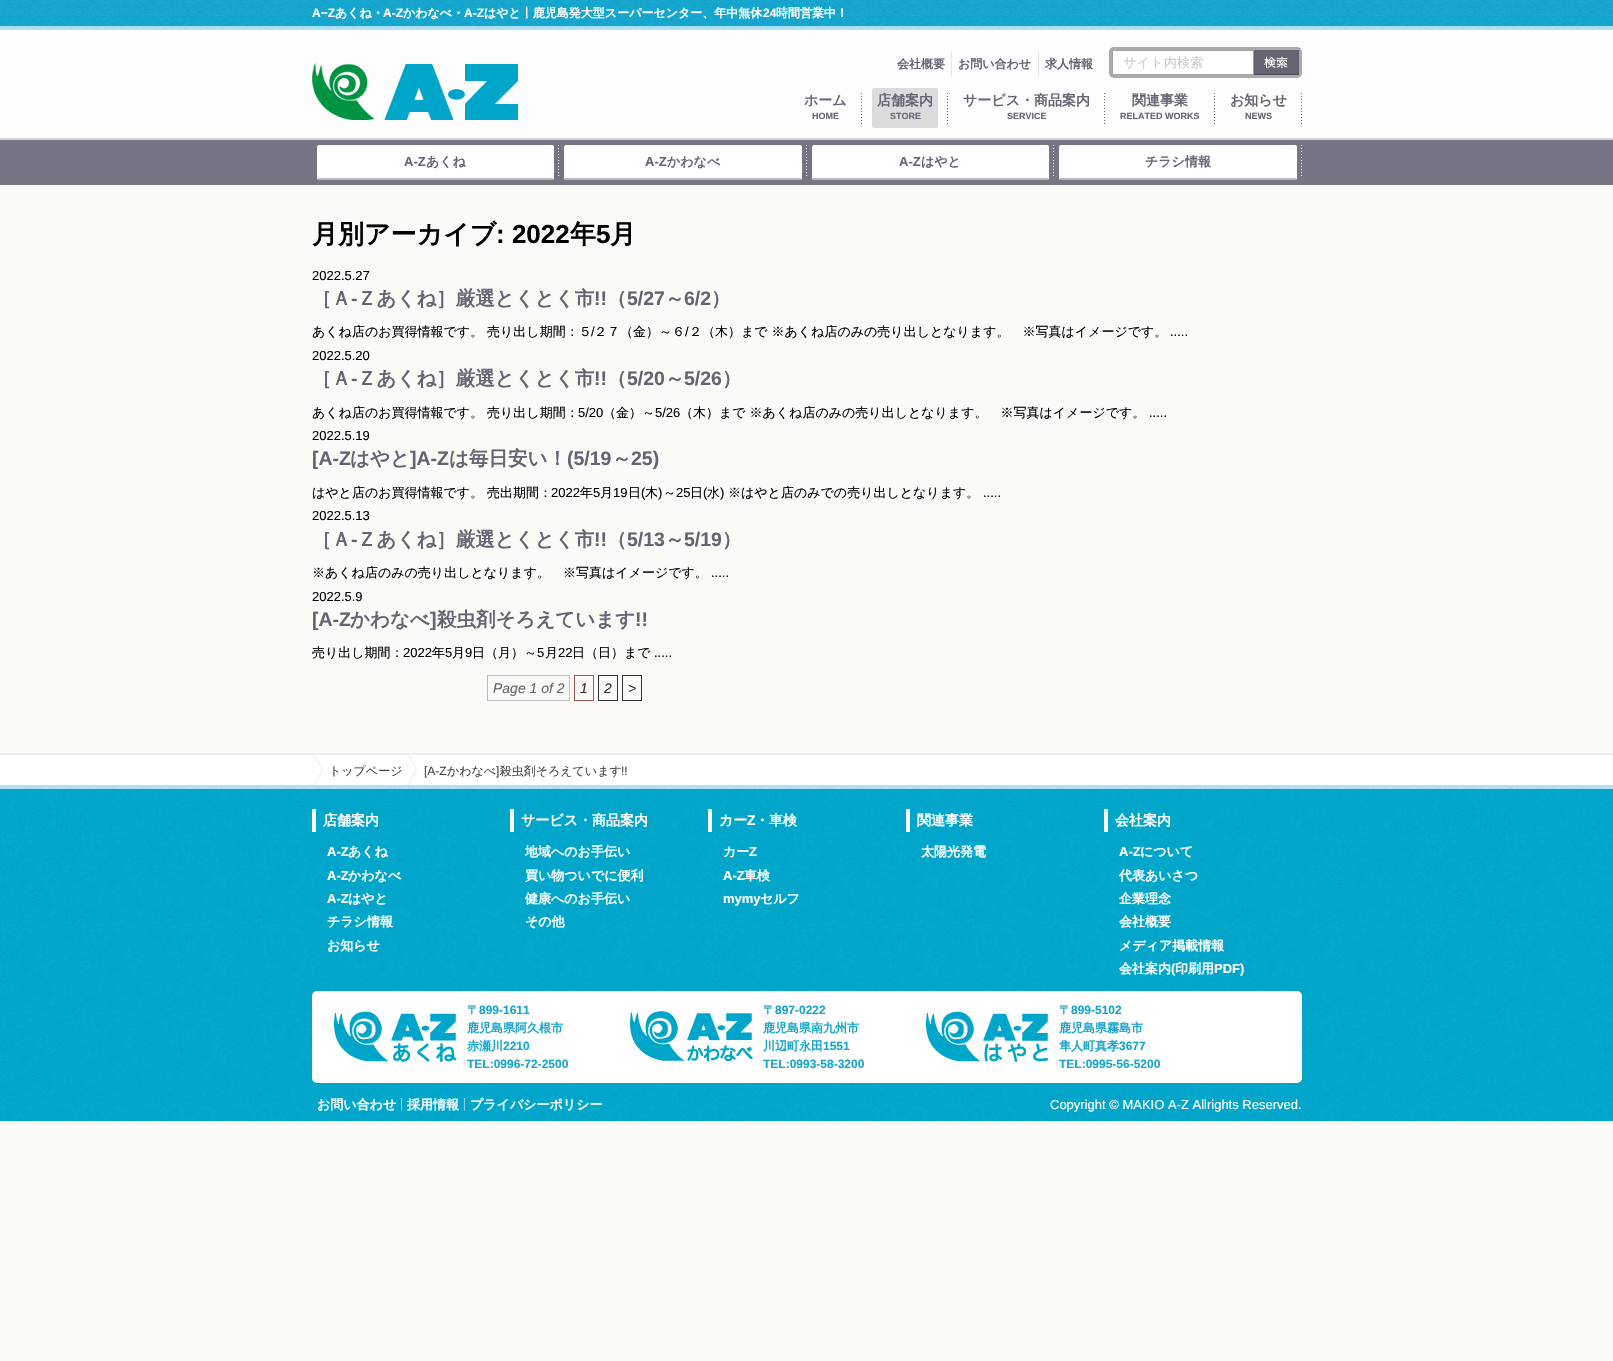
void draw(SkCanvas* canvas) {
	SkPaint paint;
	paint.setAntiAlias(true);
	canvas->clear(0xfffbfaf7);
	paint.setColor(0xfffdfdfd);
	canvas->drawRect(SkRect::MakeXYWH(0, 30, 1613, 108), paint);
	canvas->drawImageRect(SkImages::DeferredFromEncodedData(SkData::MakeFromFileName("img1.png")), SkRect::MakeXYWH(0, 0, 1613, 30), SkSamplingOptions());
	SkFont f1(fontMgr->matchFamilyStyle("Liberation Sans", SkFontStyle::Bold()), 12);
	f1.setSubpixel(true);
	paint.setColor(0xffffffff);
	canvas->drawString("A−Z", 312, 17, f1, paint);
	SkFont f2(fontMgr->matchFamilyStyle("WenQuanYi Zen Hei", SkFontStyle::Bold()), 12);
	f2.setSubpixel(true);
	canvas->drawString("あくね・", 335, 17, f2, paint);
	canvas->drawString("A-Z", 383, 17, f1, paint);
	canvas->drawString("かわなべ・", 403, 17, f2, paint);
	canvas->drawString("A-Z", 464, 17, f1, paint);
	canvas->drawString("はやと丨鹿児島発大型スーパーセンター、年中無休", 484, 17, f2, paint);
	canvas->drawString("24", 763, 17, f1, paint);
	canvas->drawString("時間営業中！", 776, 17, f2, paint);
	paint.setColor(0xffd5d5d5);
	canvas->drawRect(SkRect::MakeXYWH(0, 138, 1613, 2), paint);
	canvas->drawImageRect(SkImages::DeferredFromEncodedData(SkData::MakeFromFileName("img2.png")), SkRect::MakeXYWH(312, 63, 206, 57), SkSamplingOptions());
	paint.setColor(0xffe5e5e5);
	canvas->drawRect(SkRect::MakeXYWH(951, 52, 1, 24), paint);
	paint.setColor(0xff646472);
	canvas->drawString("会社概要", 897, 68, f2, paint);
	paint.setColor(0xffe5e5e5);
	canvas->drawRect(SkRect::MakeXYWH(1038, 52, 1, 24), paint);
	paint.setColor(0xff646472);
	canvas->drawString("お問い合わせ", 958, 68, f2, paint);
	canvas->drawString("求人情報", 1045, 68, f2, paint);
	paint.setColor(0xffaaaaaa);
	canvas->drawRoundRect(SkRect::MakeXYWH(1109, 47, 193, 31), 5, 5, paint);
	paint.setColor(0xffffffff);
	canvas->drawRect(SkRect::MakeXYWH(1112.5, 50.5, 141, 24), paint);
	paint.setStroke(true);
	paint.setStrokeWidth(1);
	paint.setColor(0xffa2a2a2);
	canvas->drawRect(SkRect::MakeXYWH(1112.5, 50.5, 141, 24), paint);
	SkFont f3(fontMgr->matchFamilyStyle("WenQuanYi Zen Hei", SkFontStyle(500, SkFontStyle::kNormal_Width, SkFontStyle::kUpright_Slant)), 13.25);
	f3.setSubpixel(true);
	paint.setStroke(false);
	paint.setColor(0xffcccccc);
	canvas->drawString("サイト内検索", 1123, 67, f3, paint);
	canvas->drawImageRect(SkImages::DeferredFromEncodedData(SkData::MakeFromFileName("img3.png")), SkRect::MakeXYWH(1254, 50, 45, 25), SkSamplingOptions());
	canvas->drawImageRect(SkImages::DeferredFromEncodedData(SkData::MakeFromFileName("img4.png")), SkRect::MakeXYWH(861, 93, 1, 31), SkSamplingOptions());
	SkFont f4(fontMgr->matchFamilyStyle("WenQuanYi Zen Hei", SkFontStyle::Bold()), 14);
	f4.setSubpixel(true);
	paint.setColor(0xff646472);
	canvas->drawString("ホーム", 804, 105, f4, paint);
	SkFont f5(fontMgr->matchFamilyStyle("Liberation Sans", SkFontStyle::Bold()), 9);
	f5.setSubpixel(true);
	canvas->drawString("HOME", 812, 119, f5, paint);
	canvas->drawImageRect(SkImages::DeferredFromEncodedData(SkData::MakeFromFileName("img4.png")), SkRect::MakeXYWH(947, 93, 1, 31), SkSamplingOptions());
	paint.setColor(0xffdbdddd);
	canvas->drawRoundRect(SkRect::MakeXYWH(872, 88, 66, 40), 2, 2, paint);
	paint.setColor(0xff646472);
	canvas->drawString("店舗案内", 877, 105, f4, paint);
	canvas->drawString("STORE", 890, 119, f5, paint);
	canvas->drawImageRect(SkImages::DeferredFromEncodedData(SkData::MakeFromFileName("img4.png")), SkRect::MakeXYWH(1104, 93, 1, 31), SkSamplingOptions());
	canvas->drawString("サービス・商品案内", 963, 105, f4, paint);
	canvas->drawString("SERVICE", 1007, 119, f5, paint);
	canvas->drawImageRect(SkImages::DeferredFromEncodedData(SkData::MakeFromFileName("img4.png")), SkRect::MakeXYWH(1214, 93, 1, 31), SkSamplingOptions());
	canvas->drawString("関連事業", 1132, 105, f4, paint);
	canvas->drawString("RELATED WORKS", 1120, 119, f5, paint);
	canvas->drawImageRect(SkImages::DeferredFromEncodedData(SkData::MakeFromFileName("img4.png")), SkRect::MakeXYWH(1301, 93, 1, 31), SkSamplingOptions());
	canvas->drawString("お知らせ", 1230, 105, f4, paint);
	canvas->drawString("NEWS", 1245, 119, f5, paint);
	paint.setColor(0xff757584);
	canvas->drawRect(SkRect::MakeXYWH(0, 140, 1613, 45), paint);
	canvas->drawImageRect(SkImages::DeferredFromEncodedData(SkData::MakeFromFileName("img5.png")), SkRect::MakeXYWH(558, 145, 1, 31), SkSamplingOptions());
	paint.setColor(0xffffffff);
	canvas->drawRoundRect(SkRect::MakeXYWH(317, 145, 237, 35), 2, 2, paint);
	paint.setColor(0xffb8b8b8);
	canvas->drawRect(SkRect::MakeXYWH(318, 178, 235, 2), paint);
	SkFont f6(fontMgr->matchFamilyStyle("Liberation Sans", SkFontStyle::Bold()), 13);
	f6.setSubpixel(true);
	paint.setColor(0xff646472);
	canvas->drawString("A-Z", 404, 166, f6, paint);
	SkFont f7(fontMgr->matchFamilyStyle("WenQuanYi Zen Hei", SkFontStyle::Bold()), 13);
	f7.setSubpixel(true);
	canvas->drawString("あくね", 426, 166, f7, paint);
	canvas->drawImageRect(SkImages::DeferredFromEncodedData(SkData::MakeFromFileName("img5.png")), SkRect::MakeXYWH(806, 145, 1, 31), SkSamplingOptions());
	paint.setColor(0xffffffff);
	canvas->drawRoundRect(SkRect::MakeXYWH(564, 145, 238, 35), 2, 2, paint);
	paint.setColor(0xffb8b8b8);
	canvas->drawRect(SkRect::MakeXYWH(565, 178, 236, 2), paint);
	paint.setColor(0xff646472);
	canvas->drawString("A-Z", 645, 166, f6, paint);
	canvas->drawString("かわなべ", 667, 166, f7, paint);
	canvas->drawImageRect(SkImages::DeferredFromEncodedData(SkData::MakeFromFileName("img5.png")), SkRect::MakeXYWH(1053, 145, 1, 31), SkSamplingOptions());
	paint.setColor(0xffffffff);
	canvas->drawRoundRect(SkRect::MakeXYWH(812, 145, 237, 35), 2, 2, paint);
	paint.setColor(0xffb8b8b8);
	canvas->drawRect(SkRect::MakeXYWH(813, 178, 235, 2), paint);
	paint.setColor(0xff646472);
	canvas->drawString("A-Z", 899, 166, f6, paint);
	canvas->drawString("はやと", 921, 166, f7, paint);
	canvas->drawImageRect(SkImages::DeferredFromEncodedData(SkData::MakeFromFileName("img5.png")), SkRect::MakeXYWH(1301, 145, 1, 31), SkSamplingOptions());
	paint.setColor(0xffffffff);
	canvas->drawRoundRect(SkRect::MakeXYWH(1059, 145, 238, 35), 2, 2, paint);
	paint.setColor(0xffb8b8b8);
	canvas->drawRect(SkRect::MakeXYWH(1060, 178, 236, 2), paint);
	paint.setColor(0xff646472);
	canvas->drawString("チラシ情報", 1145, 166, f7, paint);
	SkFont f8(fontMgr->matchFamilyStyle("WenQuanYi Zen Hei", SkFontStyle::Bold()), 26);
	f8.setSubpixel(true);
	paint.setColor(0xff000000);
	canvas->drawString("月別アーカイブ", 312, 243, f8, paint);
	SkFont f9(fontMgr->matchFamilyStyle("Liberation Sans", SkFontStyle::Bold()), 26);
	f9.setSubpixel(true);
	canvas->drawString(": 2022", 496, 243, f9, paint);
	canvas->drawString("年", 570, 243, f8, paint);
	canvas->drawString("5", 596, 243, f9, paint);
	canvas->drawString("月", 610, 243, f8, paint);
	SkFont f10(fontMgr->matchFamilyStyle("Liberation Sans", SkFontStyle::Normal()), 13);
	f10.setSubpixel(true);
	canvas->drawString("2022.5.27", 312, 280, f10, paint);
	SkFont f11(fontMgr->matchFamilyStyle("WenQuanYi Zen Hei", SkFontStyle::Bold()), 19.5);
	f11.setSubpixel(true);
	paint.setColor(0xff646472);
	canvas->drawString("［Ａ", 312, 305, f11, paint);
	SkFont f12(fontMgr->matchFamilyStyle("Liberation Sans", SkFontStyle::Bold()), 19.5);
	f12.setSubpixel(true);
	canvas->drawString("-", 351, 305, f12, paint);
	canvas->drawString("Ｚあくね］厳選とくとく市", 357, 305, f11, paint);
	canvas->drawString("!!", 594, 305, f12, paint);
	canvas->drawString("（", 607, 305, f11, paint);
	canvas->drawString("5/27", 627, 305, f12, paint);
	canvas->drawString("～", 665, 305, f11, paint);
	canvas->drawString("6/2", 684, 305, f12, paint);
	canvas->drawString("）", 711, 305, f11, paint);
	SkFont f13(fontMgr->matchFamilyStyle("WenQuanYi Zen Hei", SkFontStyle(500, SkFontStyle::kNormal_Width, SkFontStyle::kUpright_Slant)), 13);
	f13.setSubpixel(true);
	paint.setColor(0xff000000);
	canvas->drawString("あくね店のお買得情報です。 売り出し期間：５", 312, 336, f13, paint);
	canvas->drawString("/", 591, 336, f10, paint);
	canvas->drawString("２７（金）～６", 594, 336, f13, paint);
	canvas->drawString("/", 685, 336, f10, paint);
	canvas->drawString("２（木）まで ※あくね店のみの売り出しとなります。　※写真はイメージです。", 689, 336, f13, paint);
	canvas->drawString(".....", 1170, 336, f10, paint);
	canvas->drawString("2022.5.20", 312, 360, f10, paint);
	paint.setColor(0xff646472);
	canvas->drawString("［Ａ", 312, 385, f11, paint);
	canvas->drawString("-", 351, 385, f12, paint);
	canvas->drawString("Ｚあくね］厳選とくとく市", 357, 385, f11, paint);
	canvas->drawString("!!", 594, 385, f12, paint);
	canvas->drawString("（", 607, 385, f11, paint);
	canvas->drawString("5/20", 627, 385, f12, paint);
	canvas->drawString("～", 665, 385, f11, paint);
	canvas->drawString("5/26", 684, 385, f12, paint);
	canvas->drawString("）", 722, 385, f11, paint);
	paint.setColor(0xff000000);
	canvas->drawString("あくね店のお買得情報です。 売り出し期間：", 312, 417, f13, paint);
	canvas->drawString("5/20", 578, 417, f10, paint);
	canvas->drawString("（金）～", 603, 417, f13, paint);
	canvas->drawString("5/26", 655, 417, f10, paint);
	canvas->drawString("（木）まで ※あくね店のみの売り出しとなります。　※写真はイメージです。", 680, 417, f13, paint);
	canvas->drawString(".....", 1149, 417, f10, paint);
	canvas->drawString("2022.5.19", 312, 440, f10, paint);
	paint.setColor(0xff646472);
	canvas->drawString("[A-Z", 312, 465, f12, paint);
	canvas->drawString("はやと", 350, 465, f11, paint);
	canvas->drawString("]A-Z", 410, 465, f12, paint);
	canvas->drawString("は毎日安い！", 449, 465, f11, paint);
	canvas->drawString("(5/19", 567, 465, f12, paint);
	canvas->drawString("～", 612, 465, f11, paint);
	canvas->drawString("25)", 631, 465, f12, paint);
	paint.setColor(0xff000000);
	canvas->drawString("はやと店のお買得情報です。 売出期間：", 312, 497, f13, paint);
	canvas->drawString("2022", 551, 497, f10, paint);
	canvas->drawString("年", 580, 497, f13, paint);
	canvas->drawString("5", 593, 497, f10, paint);
	canvas->drawString("月", 600, 497, f13, paint);
	canvas->drawString("19", 613, 497, f10, paint);
	canvas->drawString("日", 628, 497, f13, paint);
	canvas->drawString("(", 641, 497, f10, paint);
	canvas->drawString("木", 645, 497, f13, paint);
	canvas->drawString(")", 658, 497, f10, paint);
	canvas->drawString("～", 663, 497, f13, paint);
	canvas->drawString("25", 676, 497, f10, paint);
	canvas->drawString("日", 690, 497, f13, paint);
	canvas->drawString("(", 703, 497, f10, paint);
	canvas->drawString("水", 707, 497, f13, paint);
	canvas->drawString(")", 720, 497, f10, paint);
	canvas->drawString("※はやと店のみでの売り出しとなります。", 728, 497, f13, paint);
	canvas->drawString(".....", 983, 497, f10, paint);
	canvas->drawString("2022.5.13", 312, 520, f10, paint);
	paint.setColor(0xff646472);
	canvas->drawString("［Ａ", 312, 546, f11, paint);
	canvas->drawString("-", 351, 546, f12, paint);
	canvas->drawString("Ｚあくね］厳選とくとく市", 357, 546, f11, paint);
	canvas->drawString("!!", 594, 546, f12, paint);
	canvas->drawString("（", 607, 546, f11, paint);
	canvas->drawString("5/13", 627, 546, f12, paint);
	canvas->drawString("～", 665, 546, f11, paint);
	canvas->drawString("5/19", 684, 546, f12, paint);
	canvas->drawString("）", 722, 546, f11, paint);
	paint.setColor(0xff000000);
	canvas->drawString("※あくね店のみの売り出しとなります。　※写真はイメージです。", 312, 577, f13, paint);
	canvas->drawString(".....", 711, 577, f10, paint);
	canvas->drawString("2022.5.9", 312, 601, f10, paint);
	paint.setColor(0xff646472);
	canvas->drawString("[A-Z", 312, 626, f12, paint);
	canvas->drawString("かわなべ", 350, 626, f11, paint);
	canvas->drawString("]", 430, 626, f12, paint);
	canvas->drawString("殺虫剤そろえています", 437, 626, f11, paint);
	canvas->drawString("!!", 635, 626, f12, paint);
	paint.setColor(0xff000000);
	canvas->drawString("売り出し期間：", 312, 657, f13, paint);
	canvas->drawString("2022", 403, 657, f10, paint);
	canvas->drawString("年", 432, 657, f13, paint);
	canvas->drawString("5", 445, 657, f10, paint);
	canvas->drawString("月", 452, 657, f13, paint);
	canvas->drawString("9", 465, 657, f10, paint);
	canvas->drawString("日（月）～", 472, 657, f13, paint);
	canvas->drawString("5", 537, 657, f10, paint);
	canvas->drawString("月", 545, 657, f13, paint);
	canvas->drawString("22", 558, 657, f10, paint);
	canvas->drawString("日（日）まで", 572, 657, f13, paint);
	canvas->drawString(".....", 654, 657, f10, paint);
	paint.setStroke(true);
	paint.setColor(0xffbfbfbf);
	canvas->drawRect(SkRect::MakeXYWH(487.5, 675.5, 82, 25), paint);
	SkFont f14(fontMgr->matchFamilyStyle("Liberation Sans", SkFontStyle::Italic()), 14);
	f14.setSubpixel(true);
	paint.setStroke(false);
	paint.setColor(0xff666666);
	canvas->drawString("Page 1 of 2", 493, 693, f14, paint);
	paint.setStroke(true);
	paint.setColor(0xffa85757);
	canvas->drawRect(SkRect::MakeXYWH(574.5, 675.5, 19, 25), paint);
	paint.setStroke(false);
	paint.setColor(0xff333333);
	canvas->drawString("1", 580, 693, f14, paint);
	paint.setStroke(true);
	canvas->drawRect(SkRect::MakeXYWH(598.5, 675.5, 19, 25), paint);
	paint.setStroke(false);
	canvas->drawString("2", 604, 693, f14, paint);
	paint.setStroke(true);
	canvas->drawRect(SkRect::MakeXYWH(622.5, 675.5, 19, 25), paint);
	paint.setStroke(false);
	canvas->drawString(">", 628, 693, f14, paint);
	canvas->drawImageRect(SkImages::DeferredFromEncodedData(SkData::MakeFromFileName("img6.png")), SkRect::MakeXYWH(0, 789, 1613, 332), SkSamplingOptions());
	canvas->drawImageRect(SkImages::DeferredFromEncodedData(SkData::MakeFromFileName("img7.png")), SkRect::MakeXYWH(0, 753, 1613, 36), SkSamplingOptions());
	canvas->drawImageRect(SkImages::DeferredFromEncodedData(SkData::MakeFromFileName("img8.png")), SkRect::MakeXYWH(313, 755, 11, 30), SkSamplingOptions());
	SkFont f15(fontMgr->matchFamilyStyle("WenQuanYi Zen Hei", SkFontStyle(500, SkFontStyle::kNormal_Width, SkFontStyle::kUpright_Slant)), 12);
	f15.setSubpixel(true);
	paint.setColor(0xff444444);
	canvas->drawString("トップページ", 329, 775, f15, paint);
	canvas->drawImageRect(SkImages::DeferredFromEncodedData(SkData::MakeFromFileName("img9.png")), SkRect::MakeXYWH(408, 755, 10, 30), SkSamplingOptions());
	SkFont f16(fontMgr->matchFamilyStyle("Liberation Sans", SkFontStyle::Normal()), 12);
	f16.setSubpixel(true);
	canvas->drawString("[A-Z", 424, 775, f16, paint);
	canvas->drawString("かわなべ 殺虫剤そろえています", 447, 775, f15, paint);
	canvas->drawString("]", 496, 775, f16, paint);
	canvas->drawString("!!", 621, 775, f16, paint);
	paint.setColor(0xffffffff);
	canvas->drawRect(SkRect::MakeXYWH(312, 809, 4, 23), paint);
	canvas->drawString("店舗案内", 323, 825, f4, paint);
	canvas->drawString("A-Z", 327, 856, f6, paint);
	canvas->drawString("あくね", 348, 856, f7, paint);
	canvas->drawString("A-Z", 327, 880, f6, paint);
	canvas->drawString("かわなべ", 348, 880, f7, paint);
	canvas->drawString("A-Z", 327, 903, f6, paint);
	canvas->drawString("はやと", 348, 903, f7, paint);
	canvas->drawString("チラシ情報", 327, 926, f7, paint);
	canvas->drawString("お知らせ", 327, 950, f7, paint);
	canvas->drawRect(SkRect::MakeXYWH(510, 809, 4, 23), paint);
	canvas->drawString("サービス・商品案内", 521, 825, f4, paint);
	canvas->drawString("地域へのお手伝い", 525, 856, f7, paint);
	canvas->drawString("買い物ついでに便利", 525, 880, f7, paint);
	canvas->drawString("健康へのお手伝い", 525, 903, f7, paint);
	canvas->drawString("その他", 525, 926, f7, paint);
	canvas->drawRect(SkRect::MakeXYWH(708, 809, 4, 23), paint);
	canvas->drawString("カー", 719, 825, f4, paint);
	SkFont f17(fontMgr->matchFamilyStyle("Liberation Sans", SkFontStyle::Bold()), 14);
	f17.setSubpixel(true);
	canvas->drawString("Z", 747, 825, f17, paint);
	canvas->drawString("・車検", 755, 825, f4, paint);
	canvas->drawString("カー", 723, 856, f7, paint);
	canvas->drawString("Z", 749, 856, f6, paint);
	canvas->drawString("A-Z", 723, 880, f6, paint);
	canvas->drawString("車検", 744, 880, f7, paint);
	canvas->drawString("mymy", 723, 903, f6, paint);
	canvas->drawString("セルフ", 760, 903, f7, paint);
	canvas->drawRect(SkRect::MakeXYWH(906, 809, 4, 23), paint);
	canvas->drawString("関連事業", 917, 825, f4, paint);
	canvas->drawString("太陽光発電", 921, 856, f7, paint);
	canvas->drawRect(SkRect::MakeXYWH(1104, 809, 4, 23), paint);
	canvas->drawString("会社案内", 1115, 825, f4, paint);
	canvas->drawString("A-Z", 1119, 856, f6, paint);
	canvas->drawString("について", 1140, 856, f7, paint);
	canvas->drawString("代表あいさつ", 1119, 880, f7, paint);
	canvas->drawString("企業理念", 1119, 903, f7, paint);
	canvas->drawString("会社概要", 1119, 926, f7, paint);
	canvas->drawString("メディア掲載情報", 1119, 950, f7, paint);
	canvas->drawString("会社案内", 1119, 973, f7, paint);
	canvas->drawString("(", 1171, 973, f6, paint);
	canvas->drawString("印刷用", 1175, 973, f7, paint);
	canvas->drawString("PDF)", 1214, 973, f6, paint);
	canvas->drawRoundRect(SkRect::MakeXYWH(312, 991, 990, 92), 5, 5, paint);
	canvas->drawImageRect(SkImages::DeferredFromEncodedData(SkData::MakeFromFileName("img10.png")), SkRect::MakeXYWH(334, 1011, 123, 51), SkSamplingOptions());
	paint.setColor(0xff14a4cc);
	canvas->drawString("〒", 467, 1014, f2, paint);
	canvas->drawString("899-1611", 479, 1014, f1, paint);
	canvas->drawString("鹿児島県阿久根市", 467, 1032, f2, paint);
	canvas->drawString("赤瀬川", 467, 1050, f2, paint);
	canvas->drawString("2210", 503, 1050, f1, paint);
	canvas->drawString("TEL:0996-72-2500", 467, 1068, f1, paint);
	canvas->drawImageRect(SkImages::DeferredFromEncodedData(SkData::MakeFromFileName("img11.png")), SkRect::MakeXYWH(630, 1011, 123, 51), SkSamplingOptions());
	canvas->drawString("〒", 763, 1014, f2, paint);
	canvas->drawString("897-0222", 775, 1014, f1, paint);
	canvas->drawString("鹿児島県南九州市", 763, 1032, f2, paint);
	canvas->drawString("川辺町永田", 763, 1050, f2, paint);
	canvas->drawString("1551", 823, 1050, f1, paint);
	canvas->drawString("TEL:0993-58-3200", 763, 1068, f1, paint);
	canvas->drawImageRect(SkImages::DeferredFromEncodedData(SkData::MakeFromFileName("img12.png")), SkRect::MakeXYWH(926, 1011, 122, 51), SkSamplingOptions());
	canvas->drawString("〒", 1059, 1014, f2, paint);
	canvas->drawString("899-5102", 1071, 1014, f1, paint);
	canvas->drawString("鹿児島県霧島市", 1059, 1032, f2, paint);
	canvas->drawString("隼人町真孝", 1059, 1050, f2, paint);
	canvas->drawString("3677", 1119, 1050, f1, paint);
	canvas->drawString("TEL:0995-56-5200", 1059, 1068, f1, paint);
	paint.setColor(0xff80d2e4);
	canvas->drawRect(SkRect::MakeXYWH(401, 1098, 1, 13), paint);
	paint.setColor(0xffffffff);
	canvas->drawString("お問い合わせ", 317, 1109, f7, paint);
	paint.setColor(0xff80d2e4);
	canvas->drawRect(SkRect::MakeXYWH(464, 1098, 1, 13), paint);
	paint.setColor(0xffffffff);
	canvas->drawString("採用情報", 407, 1109, f7, paint);
	canvas->drawString("プライバシーポリシー", 470, 1109, f7, paint);
	canvas->drawString("Copyright © MAKIO A-Z Allrights Reserved.", 1050, 1109, f10, paint);
}
